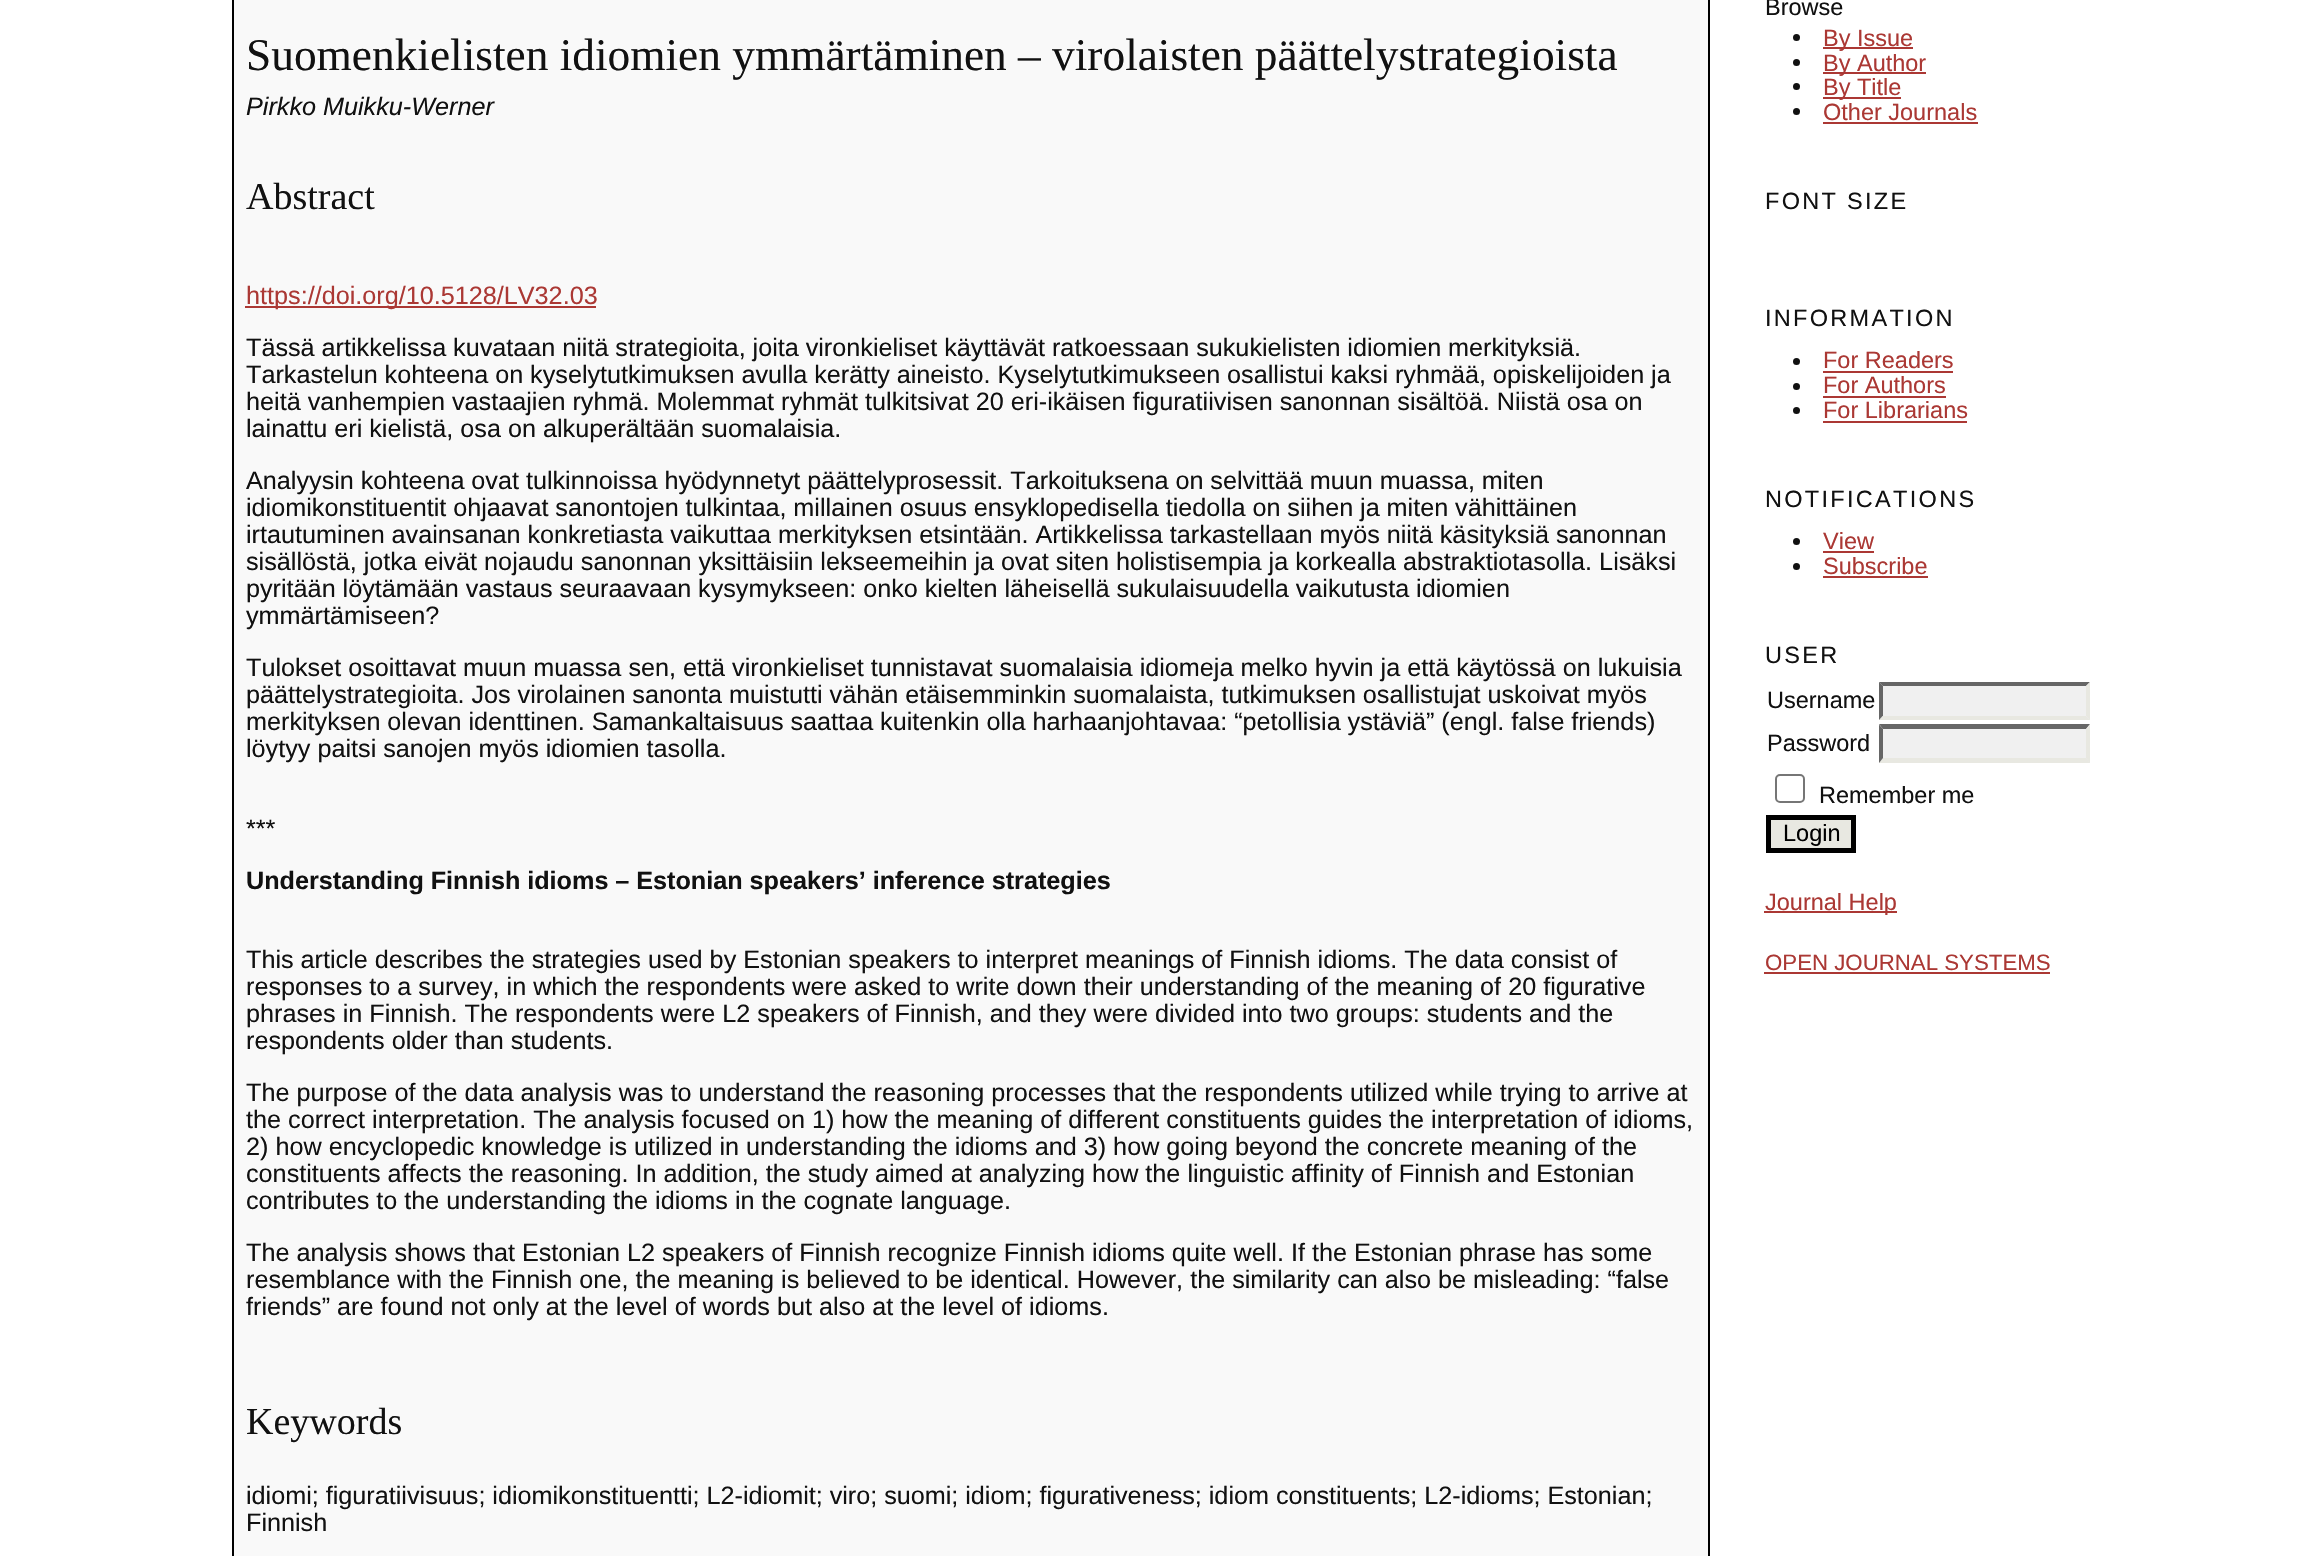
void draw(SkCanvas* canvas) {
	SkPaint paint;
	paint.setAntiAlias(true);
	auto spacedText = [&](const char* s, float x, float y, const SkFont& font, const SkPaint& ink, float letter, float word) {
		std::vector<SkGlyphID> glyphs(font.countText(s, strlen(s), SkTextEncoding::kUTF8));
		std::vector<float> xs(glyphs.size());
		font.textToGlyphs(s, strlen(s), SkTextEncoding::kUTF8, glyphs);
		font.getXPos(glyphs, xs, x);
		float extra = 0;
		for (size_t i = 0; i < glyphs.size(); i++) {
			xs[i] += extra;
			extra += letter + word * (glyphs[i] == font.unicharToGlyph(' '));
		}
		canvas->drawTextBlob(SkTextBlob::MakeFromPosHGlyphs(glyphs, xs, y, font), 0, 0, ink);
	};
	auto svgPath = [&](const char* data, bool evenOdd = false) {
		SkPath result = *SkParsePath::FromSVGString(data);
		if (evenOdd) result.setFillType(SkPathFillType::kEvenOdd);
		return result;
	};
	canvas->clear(0xffffffff);
	paint.setColor(0xfff9f9f9);
	canvas->drawRect(SkRect::MakeXYWH(234, 0, 1474, 1556), paint);
	paint.setColor(0xff000000);
	canvas->drawRect(SkRect::MakeXYWH(1708, 0, 2, 1556), paint);
	canvas->drawRect(SkRect::MakeXYWH(232, 0, 2, 1556), paint);
	SkFont f1(fontMgr->matchFamilyStyle("Liberation Serif", SkFontStyle::Normal()), 45.35);
	f1.setSubpixel(true);
	paint.setColor(0xff111111);
	canvas->drawString("Suomenkielisten idiomien ymmärtäminen – virolaisten päättelystrategioista", 246, 70, f1, paint);
	SkFont f2(fontMgr->matchFamilyStyle("Liberation Sans", SkFontStyle::Italic()), 25.2);
	f2.setSubpixel(true);
	canvas->drawString("Pirkko Muikku-Werner", 246, 115, f2, paint);
	SkFont f3(fontMgr->matchFamilyStyle("Liberation Serif", SkFontStyle::Normal()), 38);
	f3.setSubpixel(true);
	canvas->drawString("Abstract", 246, 209, f3, paint);
	paint.setColor(0xffab3834);
	canvas->drawRect(SkRect::MakeXYWH(245, 306, 351, 2), paint);
	SkFont f4(fontMgr->matchFamilyStyle("Liberation Sans", SkFontStyle::Normal()), 25.2);
	f4.setSubpixel(true);
	canvas->drawString("https://doi.org/10.5128/LV32.03", 246, 304, f4, paint);
	paint.setColor(0xff111111);
	spacedText("Tässä artikkelissa kuvataan niitä strategioita, joita vironkieliset käyttävät ratkoessaan sukukielisten idiomien merkityksiä.", 246, 356, f4, paint, 0, -0.1);
	spacedText("Tarkastelun kohteena on kyselytutkimuksen avulla kerätty aineisto. Kyselytutkimukseen osallistui kaksi ryhmää, opiskelijoiden ja", 246, 383, f4, paint, 0, -0.1);
	canvas->drawString("heitä vanhempien vastaajien ryhmä. Molemmat ryhmät tulkitsivat 20 eri-ikäisen figuratiivisen sanonnan sisältöä. Niistä osa on", 246, 410, f4, paint);
	canvas->drawString("lainattu eri kielistä, osa on alkuperältään suomalaisia.", 246, 437, f4, paint);
	spacedText("Analyysin kohteena ovat tulkinnoissa hyödynnetyt päättelyprosessit. Tarkoituksena on selvittää muun muassa, miten", 246, 489, f4, paint, 0, -0.1);
	spacedText("idiomikonstituentit ohjaavat sanontojen tulkintaa, millainen osuus ensyklopedisella tiedolla on siihen ja miten vähittäinen", 246, 516, f4, paint, 0, -0.1);
	spacedText("irtautuminen avainsanan konkretiasta vaikuttaa merkityksen etsintään. Artikkelissa tarkastellaan myös niitä käsityksiä sanonnan", 246, 543, f4, paint, 0, -0.1);
	canvas->drawString("sisällöstä, jotka eivät nojaudu sanonnan yksittäisiin lekseemeihin ja ovat siten holistisempia ja korkealla abstraktiotasolla. Lisäksi", 246, 570, f4, paint);
	spacedText("pyritään löytämään vastaus seuraavaan kysymykseen: onko kielten läheisellä sukulaisuudella vaikutusta idiomien", 246, 597, f4, paint, 0, -0.1);
	canvas->drawString("ymmärtämiseen?", 246, 624, f4, paint);
	canvas->drawString("Tulokset osoittavat muun muassa sen, että vironkieliset tunnistavat suomalaisia idiomeja melko hyvin ja että käytössä on lukuisia", 246, 676, f4, paint);
	spacedText("päättelystrategioita. Jos virolainen sanonta muistutti vähän etäisemminkin suomalaista, tutkimuksen osallistujat uskoivat myös", 246, 703, f4, paint, 0, -0.1);
	spacedText("merkityksen olevan identtinen. Samankaltaisuus saattaa kuitenkin olla harhaanjohtavaa: “petollisia ystäviä” (engl. false friends)", 246, 730, f4, paint, 0, -0.1);
	canvas->drawString("löytyy paitsi sanojen myös idiomien tasolla.", 246, 757, f4, paint);
	canvas->drawString("***", 246, 837, f4, paint);
	SkFont f5(fontMgr->matchFamilyStyle("Liberation Sans", SkFontStyle::Bold()), 25.2);
	f5.setSubpixel(true);
	spacedText("Understanding Finnish idioms – Estonian speakers’ inference strategies", 246, 889, f5, paint, 0, -0.1);
	canvas->drawString("This article describes the strategies used by Estonian speakers to interpret meanings of Finnish idioms. The data consist of", 246, 968, f4, paint);
	canvas->drawString("responses to a survey, in which the respondents were asked to write down their understanding of the meaning of 20 figurative", 246, 995, f4, paint);
	canvas->drawString("phrases in Finnish. The respondents were L2 speakers of Finnish, and they were divided into two groups: students and the", 246, 1022, f4, paint);
	canvas->drawString("respondents older than students.", 246, 1049, f4, paint);
	canvas->drawString("The purpose of the data analysis was to understand the reasoning processes that the respondents utilized while trying to arrive at", 246, 1101, f4, paint);
	canvas->drawString("the correct interpretation. The analysis focused on 1) how the meaning of different constituents guides the interpretation of idioms,", 246, 1128, f4, paint);
	canvas->drawString("2) how encyclopedic knowledge is utilized in understanding the idioms and 3) how going beyond the concrete meaning of the", 246, 1155, f4, paint);
	canvas->drawString("constituents affects the reasoning. In addition, the study aimed at analyzing how the linguistic affinity of Finnish and Estonian", 246, 1182, f4, paint);
	canvas->drawString("contributes to the understanding the idioms in the cognate language.", 246, 1209, f4, paint);
	canvas->drawString("The analysis shows that Estonian L2 speakers of Finnish recognize Finnish idioms quite well. If the Estonian phrase has some", 246, 1261, f4, paint);
	canvas->drawString("resemblance with the Finnish one, the meaning is believed to be identical. However, the similarity can also be misleading: “false", 246, 1288, f4, paint);
	canvas->drawString("friends” are found not only at the level of words but also at the level of idioms.", 246, 1315, f4, paint);
	canvas->drawString("Keywords", 246, 1434, f3, paint);
	spacedText("idiomi; figuratiivisuus; idiomikonstituentti; L2-idiomit; viro; suomi; idiom; figurativeness; idiom constituents; L2-idioms; Estonian;", 246, 1504, f4, paint, 0, -0.1);
	canvas->drawString("Finnish", 246, 1531, f4, paint);
	SkFont f6(fontMgr->matchFamilyStyle("Liberation Sans", SkFontStyle::Normal()), 23.5);
	f6.setSubpixel(true);
	canvas->drawString("Browse", 1765, 15, f6, paint);
	canvas->drawCircle(1796.5, 37.5, 3.5, paint);
	paint.setColor(0xffab3834);
	canvas->drawRect(SkRect::MakeXYWH(1823, 47, 90, 2), paint);
	canvas->drawString("By Issue", 1823, 46, f6, paint);
	paint.setColor(0xff111111);
	canvas->drawCircle(1796.5, 62.5, 3.5, paint);
	paint.setColor(0xffab3834);
	canvas->drawRect(SkRect::MakeXYWH(1823, 72, 103, 2), paint);
	canvas->drawString("By Author", 1823, 71, f6, paint);
	paint.setColor(0xff111111);
	canvas->drawCircle(1796.5, 86.5, 3.5, paint);
	paint.setColor(0xffab3834);
	canvas->drawRect(SkRect::MakeXYWH(1823, 97, 78, 2), paint);
	canvas->drawString("By Title", 1823, 95, f6, paint);
	paint.setColor(0xff111111);
	canvas->drawCircle(1796.5, 111.5, 3.5, paint);
	paint.setColor(0xffab3834);
	canvas->drawString("Other Journals", 1823, 120, f6, paint);
	canvas->drawRect(SkRect::MakeXYWH(1823, 122, 155, 2), paint);
	paint.setColor(0xff111111);
	spacedText("FONT SIZE", 1765, 209, f6, paint, 2.3, 0);
	spacedText("INFORMATION", 1765, 326, f6, paint, 2.3, 0);
	canvas->drawCircle(1796.5, 361.5, 3.5, paint);
	paint.setColor(0xffab3834);
	canvas->drawString("For Readers", 1823, 368, f6, paint);
	canvas->drawRect(SkRect::MakeXYWH(1823, 371, 130, 2), paint);
	paint.setColor(0xff111111);
	canvas->drawCircle(1796.5, 386.5, 3.5, paint);
	paint.setColor(0xffab3834);
	canvas->drawString("For Authors", 1823, 393, f6, paint);
	canvas->drawRect(SkRect::MakeXYWH(1823, 396, 123, 2), paint);
	paint.setColor(0xff111111);
	canvas->drawCircle(1796.5, 410.5, 3.5, paint);
	paint.setColor(0xffab3834);
	canvas->drawString("For Librarians", 1823, 418, f6, paint);
	canvas->drawRect(SkRect::MakeXYWH(1823, 421, 144, 2), paint);
	paint.setColor(0xff111111);
	spacedText("NOTIFICATIONS", 1765, 507, f6, paint, 2.3, 0);
	canvas->drawCircle(1796.5, 541.5, 3.5, paint);
	paint.setColor(0xffab3834);
	canvas->drawString("View", 1823, 549, f6, paint);
	canvas->drawRect(SkRect::MakeXYWH(1823, 551, 51, 2), paint);
	paint.setColor(0xff111111);
	canvas->drawCircle(1796.5, 566.5, 3.5, paint);
	paint.setColor(0xffab3834);
	canvas->drawString("Subscribe", 1823, 574, f6, paint);
	canvas->drawRect(SkRect::MakeXYWH(1823, 576, 105, 2), paint);
	paint.setColor(0xff111111);
	spacedText("USER", 1765, 663, f6, paint, 2.3, 0);
	canvas->drawString("Username", 1767, 708, f6, paint);
	paint.setColor(0xfff0f0f0);
	canvas->drawRect(SkRect::MakeXYWH(1879, 682, 211, 38), paint);
	paint.setColor(0xff666666);
	canvas->drawPath(svgPath("M1879 682H2090L2086 686H1883Z"), paint);
	paint.setColor(0xffe8e8e1);
	canvas->drawPath(svgPath("M2090 682V720L2086 715.5V686Z"), paint);
	canvas->drawPath(svgPath("M2090 720H1879L1883 716H2086Z"), paint);
	paint.setColor(0xff666666);
	canvas->drawPath(svgPath("M1879 720V682L1883 686V715.5Z"), paint);
	paint.setColor(0xff111111);
	canvas->drawString("Password", 1767, 751, f6, paint);
	paint.setColor(0xfff0f0f0);
	canvas->drawRect(SkRect::MakeXYWH(1879, 725, 211, 38), paint);
	paint.setColor(0xff666666);
	canvas->drawPath(svgPath("M1879 724H2090L2086 729H1883Z"), paint);
	paint.setColor(0xffe8e8e1);
	canvas->drawPath(svgPath("M2090 724.5V763L2086 758V729Z"), paint);
	canvas->drawPath(svgPath("M2090 763H1879L1883 758H2086Z"), paint);
	paint.setColor(0xff666666);
	canvas->drawPath(svgPath("M1879 763V724.5L1883 729V758Z"), paint);
	paint.setStroke(true);
	paint.setStrokeWidth(2);
	paint.setColor(0xff767676);
	canvas->drawRoundRect(SkRect::MakeXYWH(1776, 775, 28, 27), 4, 4, paint);
	paint.setStroke(false);
	paint.setColor(0xff111111);
	canvas->drawString("Remember me", 1819, 803, f6, paint);
	paint.setColor(0xffe8e8e1);
	canvas->drawRect(SkRect::MakeXYWH(1768.5, 817.5, 85, 33), paint);
	paint.setStroke(true);
	paint.setStrokeWidth(5);
	paint.setColor(0xff000000);
	canvas->drawRect(SkRect::MakeXYWH(1768.5, 817.5, 85, 33), paint);
	paint.setStroke(false);
	canvas->drawString("Login", 1783, 841, f6, paint);
	paint.setColor(0xffab3834);
	canvas->drawRect(SkRect::MakeXYWH(1764, 911, 133, 2), paint);
	canvas->drawString("Journal Help", 1765, 910, f6, paint);
	SkFont f7(fontMgr->matchFamilyStyle("Liberation Sans", SkFontStyle::Normal()), 22.25);
	f7.setSubpixel(true);
	canvas->drawString("OPEN JOURNAL SYSTEMS", 1765, 970, f7, paint);
	canvas->drawRect(SkRect::MakeXYWH(1764, 972, 286, 2), paint);
}
